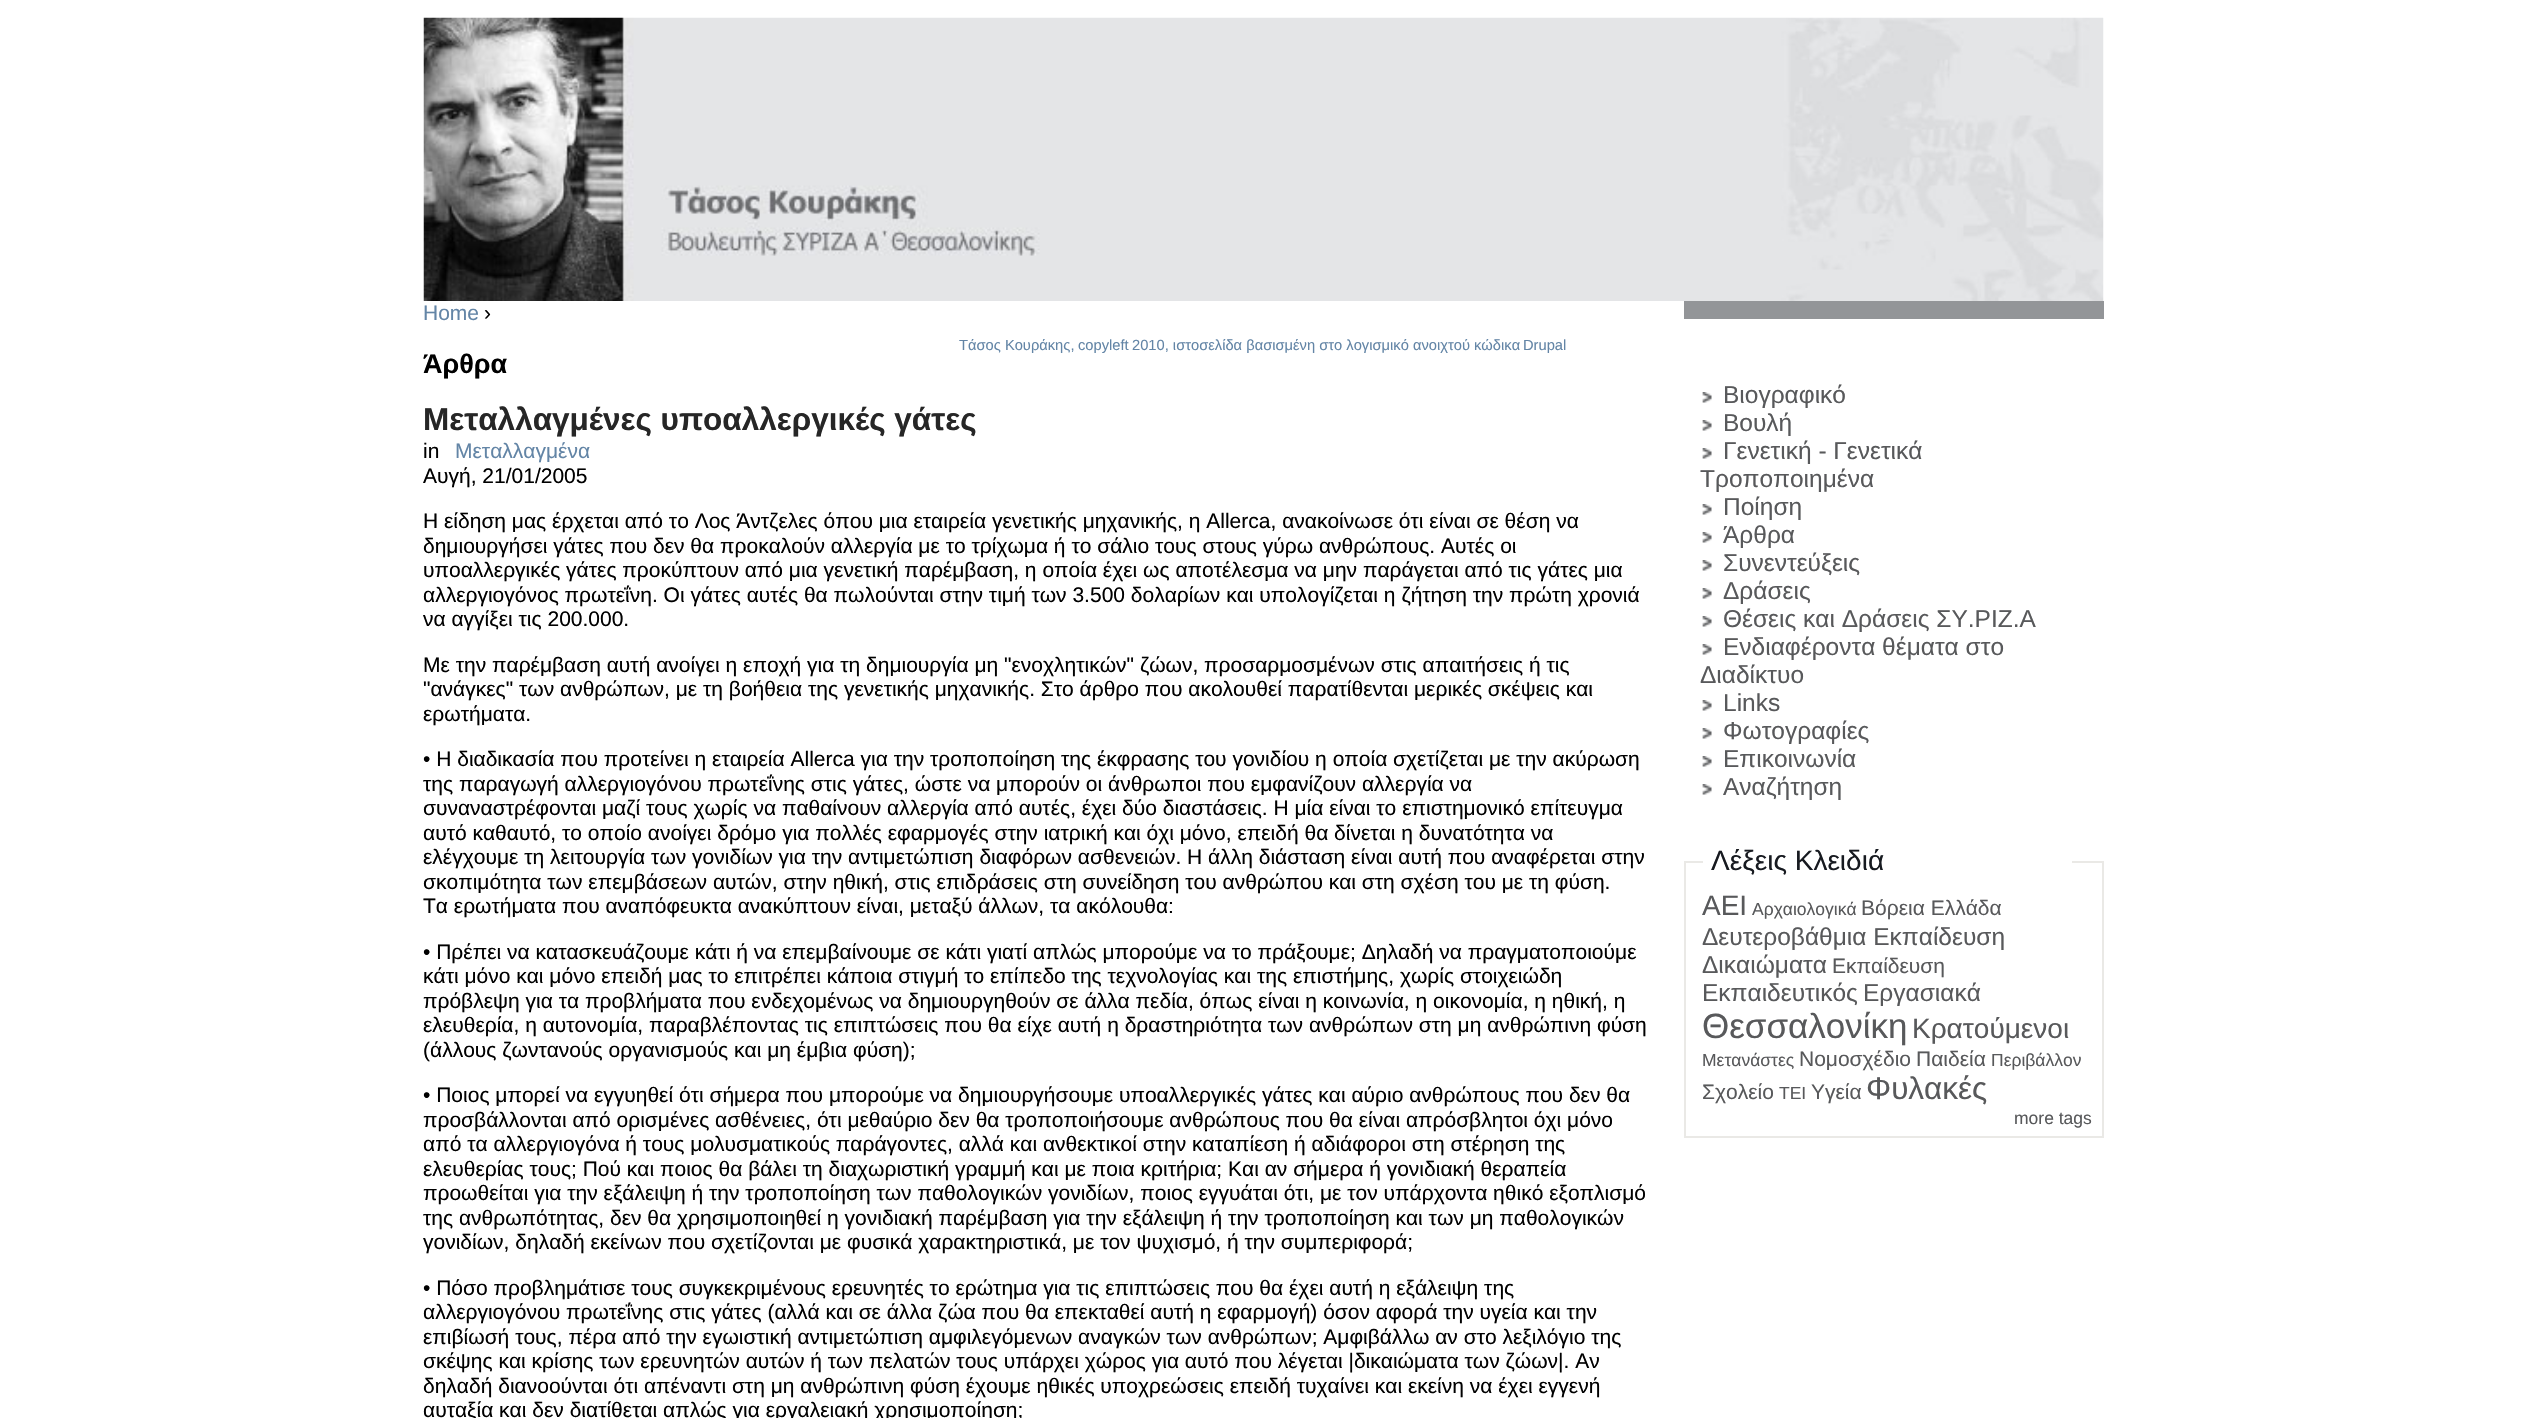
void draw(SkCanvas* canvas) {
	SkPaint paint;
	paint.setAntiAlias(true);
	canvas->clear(0xffffffff);
	canvas->drawImageRect(SkImages::DeferredFromEncodedData(SkData::MakeFromFileName("img1.png")), SkRect::MakeXYWH(423, 17, 1681, 284), SkSamplingOptions());
	SkFont f1(fontMgr->matchFamilyStyle("Liberation Sans", SkFontStyle::Normal()), 21);
	f1.setSubpixel(true);
	paint.setColor(0xff6385a6);
	canvas->drawString("Home", 423, 320, f1, paint);
	paint.setColor(0xff000000);
	canvas->drawString("›", 484, 320, f1, paint);
	SkFont f2(fontMgr->matchFamilyStyle("Liberation Sans", SkFontStyle::Bold()), 27);
	f2.setSubpixel(true);
	canvas->drawString("Άρθρα", 423, 373, f2, paint);
	SkFont f3(fontMgr->matchFamilyStyle("Liberation Sans", SkFontStyle::Bold()), 31.5);
	f3.setSubpixel(true);
	paint.setColor(0xff262626);
	canvas->drawString("Μεταλλαγμένες υποαλλεργικές γάτες", 423, 430, f3, paint);
	paint.setColor(0xff000000);
	canvas->drawString("in", 423, 458, f1, paint);
	paint.setColor(0xff6385a6);
	canvas->drawString("Μεταλλαγμένα", 455, 458, f1, paint);
	paint.setColor(0xff000000);
	canvas->drawString("Αυγή, 21/01/2005", 423, 483, f1, paint);
	canvas->drawString("Η είδηση μας έρχεται από το Λος Άντζελες όπου μια εταιρεία γενετικής μηχανικής, η Allerca, ανακοίνωσε ότι είναι σε θέση να", 423, 528, f1, paint);
	canvas->drawString("δημιουργήσει γάτες που δεν θα προκαλούν αλλεργία με το τρίχωμα ή το σάλιο τους στους γύρω ανθρώπους. Αυτές οι", 423, 553, f1, paint);
	canvas->drawString("υποαλλεργικές γάτες προκύπτουν από μια γενετική παρέμβαση, η οποία έχει ως αποτέλεσμα να μην παράγεται από τις γάτες μια", 423, 577, f1, paint);
	canvas->drawString("αλλεργιογόνος πρωτεΐνη. Οι γάτες αυτές θα πωλούνται στην τιμή των 3.500 δολαρίων και υπολογίζεται η ζήτηση την πρώτη χρονιά", 423, 602, f1, paint);
	canvas->drawString("να αγγίξει τις 200.000.", 423, 626, f1, paint);
	canvas->drawString("Με την παρέμβαση αυτή ανοίγει η εποχή για τη δημιουργία μη \"ενοχλητικών\" ζώων, προσαρμοσμένων στις απαιτήσεις ή τις", 423, 672, f1, paint);
	canvas->drawString("\"ανάγκες\" των ανθρώπων, με τη βοήθεια της γενετικής μηχανικής. Στο άρθρο που ακολουθεί παρατίθενται μερικές σκέψεις και", 423, 696, f1, paint);
	canvas->drawString("ερωτήματα.", 423, 721, f1, paint);
	canvas->drawString("• Η διαδικασία που προτείνει η εταιρεία Allerca για την τροποποίηση της έκφρασης του γονιδίου η οποία σχετίζεται με την ακύρωση", 423, 766, f1, paint);
	canvas->drawString("της παραγωγή αλλεργιογόνου πρωτεΐνης στις γάτες, ώστε να μπορούν οι άνθρωποι που εμφανίζουν αλλεργία να", 423, 791, f1, paint);
	canvas->drawString("συναναστρέφονται μαζί τους χωρίς να παθαίνουν αλλεργία από αυτές, έχει δύο διαστάσεις. Η μία είναι το επιστημονικό επίτευγμα", 423, 815, f1, paint);
	canvas->drawString("αυτό καθαυτό, το οποίο ανοίγει δρόμο για πολλές εφαρμογές στην ιατρική και όχι μόνο, επειδή θα δίνεται η δυνατότητα να", 423, 840, f1, paint);
	canvas->drawString("ελέγχουμε τη λειτουργία των γονιδίων για την αντιμετώπιση διαφόρων ασθενειών. Η άλλη διάσταση είναι αυτή που αναφέρεται στην", 423, 864, f1, paint);
	canvas->drawString("σκοπιμότητα των επεμβάσεων αυτών, στην ηθική, στις επιδράσεις στη συνείδηση του ανθρώπου και στη σχέση του με τη φύση.", 423, 889, f1, paint);
	canvas->drawString("Τα ερωτήματα που αναπόφευκτα ανακύπτουν είναι, μεταξύ άλλων, τα ακόλουθα:", 423, 913, f1, paint);
	canvas->drawString("• Πρέπει να κατασκευάζουμε κάτι ή να επεμβαίνουμε σε κάτι γιατί απλώς μπορούμε να το πράξουμε; Δηλαδή να πραγματοποιούμε", 423, 959, f1, paint);
	canvas->drawString("κάτι μόνο και μόνο επειδή μας το επιτρέπει κάποια στιγμή το επίπεδο της τεχνολογίας και της επιστήμης, χωρίς στοιχειώδη", 423, 983, f1, paint);
	canvas->drawString("πρόβλεψη για τα προβλήματα που ενδεχομένως να δημιουργηθούν σε άλλα πεδία, όπως είναι η κοινωνία, η οικονομία, η ηθική, η", 423, 1008, f1, paint);
	canvas->drawString("ελευθερία, η αυτονομία, παραβλέποντας τις επιπτώσεις που θα είχε αυτή η δραστηριότητα των ανθρώπων στη μη ανθρώπινη φύση", 423, 1032, f1, paint);
	canvas->drawString("(άλλους ζωντανούς οργανισμούς και μη έμβια φύση);", 423, 1057, f1, paint);
	canvas->drawString("• Ποιος μπορεί να εγγυηθεί ότι σήμερα που μπορούμε να δημιουργήσουμε υποαλλεργικές γάτες και αύριο ανθρώπους που δεν θα", 423, 1102, f1, paint);
	canvas->drawString("προσβάλλονται από ορισμένες ασθένειες, ότι μεθαύριο δεν θα τροποποιήσουμε ανθρώπους που θα είναι απρόσβλητοι όχι μόνο", 423, 1127, f1, paint);
	canvas->drawString("από τα αλλεργιογόνα ή τους μολυσματικούς παράγοντες, αλλά και ανθεκτικοί στην καταπίεση ή αδιάφοροι στη στέρηση της", 423, 1151, f1, paint);
	canvas->drawString("ελευθερίας τους; Πού και ποιος θα βάλει τη διαχωριστική γραμμή και με ποια κριτήρια; Και αν σήμερα ή γονιδιακή θεραπεία", 423, 1176, f1, paint);
	canvas->drawString("προωθείται για την εξάλειψη ή την τροποποίηση των παθολογικών γονιδίων, ποιος εγγυάται ότι, με τον υπάρχοντα ηθικό εξοπλισμό", 423, 1200, f1, paint);
	canvas->drawString("της ανθρωπότητας, δεν θα χρησιμοποιηθεί η γονιδιακή παρέμβαση για την εξάλειψη ή την τροποποίηση και των μη παθολογικών", 423, 1225, f1, paint);
	canvas->drawString("γονιδίων, δηλαδή εκείνων που σχετίζονται με φυσικά χαρακτηριστικά, με τον ψυχισμό, ή την συμπεριφορά;", 423, 1249, f1, paint);
	canvas->drawString("• Πόσο προβλημάτισε τους συγκεκριμένους ερευνητές το ερώτημα για τις επιπτώσεις που θα έχει αυτή η εξάλειψη της", 423, 1295, f1, paint);
	canvas->drawString("αλλεργιογόνου πρωτεΐνης στις γάτες (αλλά και σε άλλα ζώα που θα επεκταθεί αυτή η εφαρμογή) όσον αφορά την υγεία και την", 423, 1319, f1, paint);
	canvas->drawString("επιβίωσή τους, πέρα από την εγωιστική αντιμετώπιση αμφιλεγόμενων αναγκών των ανθρώπων; Αμφιβάλλω αν στο λεξιλόγιο της", 423, 1344, f1, paint);
	canvas->drawString("σκέψης και κρίσης των ερευνητών αυτών ή των πελατών τους υπάρχει χώρος για αυτό που λέγεται |δικαιώματα των ζώων|. Αν", 423, 1368, f1, paint);
	canvas->drawString("δηλαδή διανοούνται ότι απέναντι στη μη ανθρώπινη φύση έχουμε ηθικές υποχρεώσεις επειδή τυχαίνει και εκείνη να έχει εγγενή", 423, 1393, f1, paint);
	canvas->drawString("αυταξία και δεν διατίθεται απλώς για εργαλειακή χρησιμοποίηση;", 423, 1417, f1, paint);
	paint.setColor(0xff939598);
	canvas->drawRect(SkRect::MakeXYWH(1684, 301, 420, 18), paint);
	canvas->drawImageRect(SkImages::DeferredFromEncodedData(SkData::MakeFromFileName("img2.png")), SkRect::MakeXYWH(1702, 392, 10, 11), SkSamplingOptions());
	SkFont f4(fontMgr->matchFamilyStyle("Liberation Sans", SkFontStyle::Normal()), 24.5);
	f4.setSubpixel(true);
	paint.setColor(0xff58595b);
	canvas->drawString("Βιογραφικό", 1723, 403, f4, paint);
	canvas->drawImageRect(SkImages::DeferredFromEncodedData(SkData::MakeFromFileName("img2.png")), SkRect::MakeXYWH(1702, 420, 10, 11), SkSamplingOptions());
	canvas->drawString("Βουλή", 1723, 431, f4, paint);
	canvas->drawImageRect(SkImages::DeferredFromEncodedData(SkData::MakeFromFileName("img2.png")), SkRect::MakeXYWH(1702, 448, 10, 11), SkSamplingOptions());
	canvas->drawString("Γενετική - Γενετικά", 1723, 459, f4, paint);
	canvas->drawString("Τροποποιημένα", 1700, 487, f4, paint);
	canvas->drawImageRect(SkImages::DeferredFromEncodedData(SkData::MakeFromFileName("img2.png")), SkRect::MakeXYWH(1702, 504, 10, 11), SkSamplingOptions());
	canvas->drawString("Ποίηση", 1723, 515, f4, paint);
	canvas->drawImageRect(SkImages::DeferredFromEncodedData(SkData::MakeFromFileName("img2.png")), SkRect::MakeXYWH(1702, 532, 10, 11), SkSamplingOptions());
	canvas->drawString("Άρθρα", 1723, 543, f4, paint);
	canvas->drawImageRect(SkImages::DeferredFromEncodedData(SkData::MakeFromFileName("img2.png")), SkRect::MakeXYWH(1702, 560, 10, 11), SkSamplingOptions());
	canvas->drawString("Συνεντεύξεις", 1723, 571, f4, paint);
	canvas->drawImageRect(SkImages::DeferredFromEncodedData(SkData::MakeFromFileName("img2.png")), SkRect::MakeXYWH(1702, 588, 10, 11), SkSamplingOptions());
	canvas->drawString("Δράσεις", 1723, 599, f4, paint);
	canvas->drawImageRect(SkImages::DeferredFromEncodedData(SkData::MakeFromFileName("img2.png")), SkRect::MakeXYWH(1702, 616, 10, 11), SkSamplingOptions());
	canvas->drawString("Θέσεις και Δράσεις ΣΥ.ΡΙΖ.Α", 1723, 627, f4, paint);
	canvas->drawImageRect(SkImages::DeferredFromEncodedData(SkData::MakeFromFileName("img2.png")), SkRect::MakeXYWH(1702, 644, 10, 11), SkSamplingOptions());
	canvas->drawString("Ενδιαφέροντα θέματα στο", 1723, 655, f4, paint);
	canvas->drawString("Διαδίκτυο", 1700, 683, f4, paint);
	canvas->drawImageRect(SkImages::DeferredFromEncodedData(SkData::MakeFromFileName("img2.png")), SkRect::MakeXYWH(1702, 700, 10, 11), SkSamplingOptions());
	canvas->drawString("Links", 1723, 711, f4, paint);
	canvas->drawImageRect(SkImages::DeferredFromEncodedData(SkData::MakeFromFileName("img2.png")), SkRect::MakeXYWH(1702, 728, 10, 11), SkSamplingOptions());
	canvas->drawString("Φωτογραφίες", 1723, 739, f4, paint);
	canvas->drawImageRect(SkImages::DeferredFromEncodedData(SkData::MakeFromFileName("img2.png")), SkRect::MakeXYWH(1702, 756, 10, 11), SkSamplingOptions());
	canvas->drawString("Επικοινωνία", 1723, 767, f4, paint);
	canvas->drawImageRect(SkImages::DeferredFromEncodedData(SkData::MakeFromFileName("img2.png")), SkRect::MakeXYWH(1702, 784, 10, 11), SkSamplingOptions());
	canvas->drawString("Αναζήτηση", 1723, 795, f4, paint);
	paint.setStroke(true);
	paint.setStrokeWidth(2);
	paint.setColor(0xffeae9e6);
	canvas->drawRect(SkRect::MakeXYWH(1685, 862, 418, 275), paint);
	paint.setStroke(false);
	paint.setColor(0xffffffff);
	canvas->drawRect(SkRect::MakeXYWH(1703, 861, 369, 2), paint);
	SkFont f5(fontMgr->matchFamilyStyle("Liberation Sans", SkFontStyle::Normal()), 28);
	f5.setSubpixel(true);
	paint.setColor(0xff171a20);
	canvas->drawString("Λέξεις Κλειδιά", 1711, 870, f5, paint);
	paint.setColor(0xff58595b);
	canvas->drawString("ΑΕΙ", 1702, 915, f5, paint);
	SkFont f6(fontMgr->matchFamilyStyle("Liberation Sans", SkFontStyle::Normal()), 17.5);
	f6.setSubpixel(true);
	canvas->drawString("Αρχαιολογικά", 1752, 915, f6, paint);
	canvas->drawString("Βόρεια Ελλάδα", 1861, 915, f1, paint);
	canvas->drawString("Δευτεροβάθμια Εκπαίδευση", 1702, 945, f4, paint);
	canvas->drawString("Δικαιώματα", 1702, 973, f4, paint);
	canvas->drawString("Εκπαίδευση", 1832, 973, f1, paint);
	canvas->drawString("Εκπαιδευτικός", 1702, 1001, f4, paint);
	canvas->drawString("Εργασιακά", 1863, 1001, f4, paint);
	SkFont f7(fontMgr->matchFamilyStyle("Liberation Sans", SkFontStyle::Normal()), 35);
	f7.setSubpixel(true);
	canvas->drawString("Θεσσαλονίκη", 1702, 1038, f7, paint);
	canvas->drawString("Κρατούμενοι", 1912, 1038, f5, paint);
	canvas->drawString("Μετανάστες", 1702, 1066, f6, paint);
	canvas->drawString("Νομοσχέδιο", 1799, 1066, f1, paint);
	canvas->drawString("Παιδεία", 1916, 1066, f1, paint);
	canvas->drawString("Περιβάλλον", 1991, 1066, f6, paint);
	canvas->drawString("Σχολείο", 1702, 1099, f1, paint);
	canvas->drawString("ΤΕΙ", 1779, 1099, f6, paint);
	canvas->drawString("Υγεία", 1811, 1099, f1, paint);
	SkFont f8(fontMgr->matchFamilyStyle("Liberation Sans", SkFontStyle::Normal()), 31.5);
	f8.setSubpixel(true);
	canvas->drawString("Φυλακές", 1866, 1099, f8, paint);
	canvas->drawString("more tags", 2014, 1124, f6, paint);
	SkFont f9(fontMgr->matchFamilyStyle("Liberation Sans", SkFontStyle::Normal()), 14.7);
	f9.setSubpixel(true);
	paint.setColor(0xff6385a6);
	canvas->drawString("Τάσος Κουράκης,", 959, 350, f9, paint);
	canvas->drawString("copyleft", 1078, 350, f9, paint);
	canvas->drawString("2010, ιστοσελίδα βασισμένη στο λογισμικό ανοιχτού κώδικα", 1132, 350, f9, paint);
	canvas->drawString("Drupal", 1523, 350, f9, paint);
}
